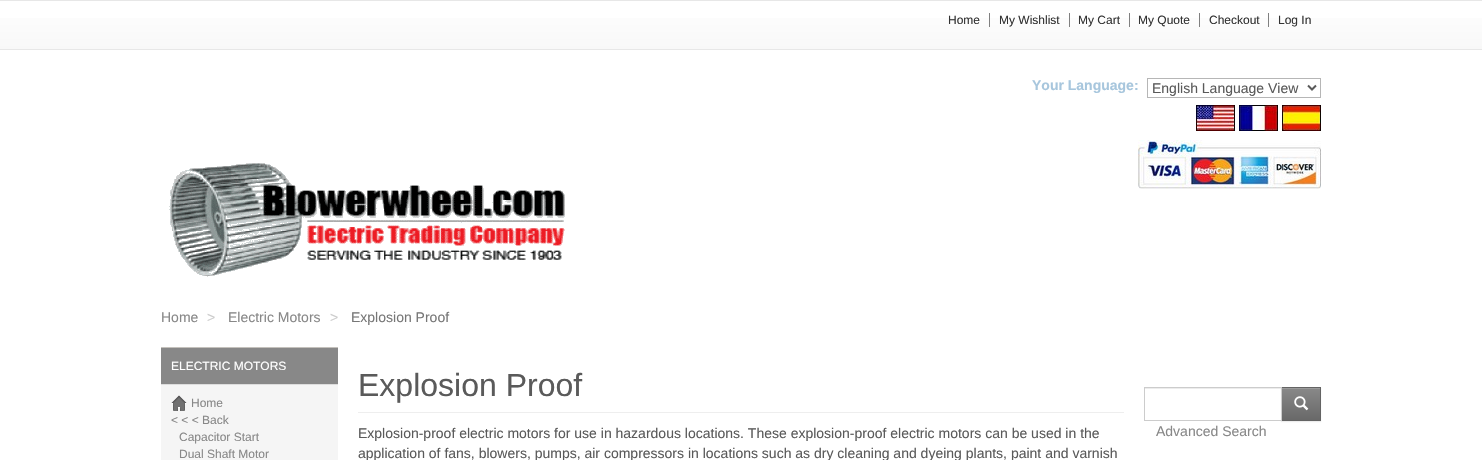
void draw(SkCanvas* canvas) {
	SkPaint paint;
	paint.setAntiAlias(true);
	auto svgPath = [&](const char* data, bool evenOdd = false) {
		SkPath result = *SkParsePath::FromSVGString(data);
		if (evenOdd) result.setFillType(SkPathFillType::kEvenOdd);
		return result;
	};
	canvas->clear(0xffffffff);
	{
		const SkColor colors[] = {0xffffffff, 0xfff8f8f8};
		const float stops[] = {0, 1};
		const SkPoint ends[] = {{741, 1}, {741, 49}};
		paint.setShader(SkGradientShader::MakeLinear(ends, colors, stops, 2, SkTileMode::kClamp));
		paint.setAlpha(255);
	}
	canvas->drawRect(SkRect::MakeXYWH(0, 18, 1482, 31), paint);
	paint.setShader(nullptr);
	paint.setColor(0xffe7e7e7);
	canvas->drawRect(SkRect::MakeXYWH(0, 0, 1482, 1), paint);
	canvas->drawRect(SkRect::MakeXYWH(0, 49, 1482, 1), paint);
	SkFont f1(fontMgr->matchFamilyStyle("Liberation Sans", SkFontStyle::Normal()), 12);
	f1.setSubpixel(true);
	paint.setColor(0xff333333);
	canvas->drawString("Home", 948, 24, f1, paint);
	paint.setColor(0xff808080);
	canvas->drawRect(SkRect::MakeXYWH(989, 13, 1, 14), paint);
	paint.setColor(0xff333333);
	canvas->drawString("My Wishlist", 999, 24, f1, paint);
	paint.setColor(0xff808080);
	canvas->drawRect(SkRect::MakeXYWH(1069, 13, 1, 14), paint);
	paint.setColor(0xff333333);
	canvas->drawString("My Cart", 1078, 24, f1, paint);
	paint.setColor(0xff808080);
	canvas->drawRect(SkRect::MakeXYWH(1129, 13, 1, 14), paint);
	paint.setColor(0xff333333);
	canvas->drawString("My Quote", 1138, 24, f1, paint);
	paint.setColor(0xff808080);
	canvas->drawRect(SkRect::MakeXYWH(1199, 13, 1, 14), paint);
	paint.setColor(0xff333333);
	canvas->drawString("Checkout", 1209, 24, f1, paint);
	paint.setColor(0xff808080);
	canvas->drawRect(SkRect::MakeXYWH(1268, 13, 1, 14), paint);
	paint.setColor(0xff333333);
	canvas->drawString("Log In", 1278, 24, f1, paint);
	SkFont f2(fontMgr->matchFamilyStyle("Liberation Sans", SkFontStyle::Bold()), 14);
	f2.setSubpixel(true);
	paint.setColor(0xffa7c6dd);
	canvas->drawString("Your Language:", 1032, 90, f2, paint);
	paint.setStroke(true);
	paint.setStrokeWidth(1);
	paint.setColor(0xffb6b6b6);
	canvas->drawRect(SkRect::MakeXYWH(1147.5, 78.5, 173, 19), paint);
	paint.setStrokeWidth(2);
	paint.setColor(0xff5a5a5a);
	canvas->drawPath(svgPath("M1308 85.5L1312 89.5L1316 85.5"), paint);
	SkFont f3(fontMgr->matchFamilyStyle("Liberation Sans", SkFontStyle::Normal()), 14);
	f3.setSubpixel(true);
	paint.setStroke(false);
	canvas->drawString("English Language View", 1152, 93, f3, paint);
	canvas->drawImageRect(SkImages::DeferredFromEncodedData(SkData::MakeFromFileName("img1.png")), SkRect::MakeXYWH(1196, 105, 39, 26), SkSamplingOptions());
	canvas->drawImageRect(SkImages::DeferredFromEncodedData(SkData::MakeFromFileName("img2.png")), SkRect::MakeXYWH(1239, 105, 39, 26), SkSamplingOptions());
	canvas->drawImageRect(SkImages::DeferredFromEncodedData(SkData::MakeFromFileName("img3.png")), SkRect::MakeXYWH(1282, 105, 39, 26), SkSamplingOptions());
	canvas->drawImageRect(SkImages::DeferredFromEncodedData(SkData::MakeFromFileName("img4.png")), SkRect::MakeXYWH(1138, 140, 183, 49), SkSamplingOptions());
	canvas->drawImageRect(SkImages::DeferredFromEncodedData(SkData::MakeFromFileName("img5.png")), SkRect::MakeXYWH(169, 163, 396, 114), SkSamplingOptions());
	paint.setColor(0xff888888);
	canvas->drawString("Home", 161, 322, f3, paint);
	paint.setColor(0xffcccccc);
	canvas->drawString(">", 207, 322, f3, paint);
	paint.setColor(0xff888888);
	canvas->drawString("Electric Motors", 228, 322, f3, paint);
	paint.setColor(0xffcccccc);
	canvas->drawString(">", 330, 322, f3, paint);
	paint.setColor(0xff777777);
	canvas->drawString("Explosion Proof", 351, 322, f3, paint);
	paint.setColor(0xfff5f5f5);
	canvas->drawRect(SkRect::MakeXYWH(161, 385, 177, 75), paint);
	paint.setColor(0xffc4c1bc);
	canvas->drawRect(SkRect::MakeXYWH(161, 347, 177, 1), paint);
	paint.setColor(0xff888888);
	canvas->drawRect(SkRect::MakeXYWH(161, 348, 177, 36), paint);
	paint.setColor(0xffdddddd);
	canvas->drawRect(SkRect::MakeXYWH(161, 384, 177, 1), paint);
	paint.setColor(0xffffffff);
	canvas->drawString("ELECTRIC MOTORS", 171, 370, f1, paint);
	canvas->drawImageRect(SkImages::DeferredFromEncodedData(SkData::MakeFromFileName("img6.png")), SkRect::MakeXYWH(171, 395, 16, 16), SkSamplingOptions());
	paint.setColor(0xff888888);
	canvas->drawString("Home", 191, 407, f1, paint);
	canvas->drawString("< < < Back", 171, 424, f1, paint);
	canvas->drawString("Capacitor Start", 179, 441, f1, paint);
	canvas->drawString("Dual Shaft Motor", 179, 458, f1, paint);
	paint.setColor(0xffeeeeee);
	canvas->drawRect(SkRect::MakeXYWH(358, 412, 766, 1), paint);
	SkFont f4(fontMgr->matchFamilyStyle("Liberation Sans", SkFontStyle::Normal()), 32);
	f4.setSubpixel(true);
	paint.setColor(0xff5a5a5a);
	canvas->drawString("Explosion Proof", 358, 396, f4, paint);
	canvas->drawString("Explosion-proof electric motors for use in hazardous locations. These explosion-proof electric motors can be used in the", 358, 438, f3, paint);
	canvas->drawString("application of fans, blowers, pumps, air compressors in locations such as dry cleaning and dyeing plants, paint and varnish", 358, 458, f3, paint);
	paint.setColor(0x12000000);
	paint.setMaskFilter(SkMaskFilter::MakeBlur(kNormal_SkBlurStyle, 0.5));
	canvas->drawRect(SkRect::MakeXYWH(1281, 388, 40, 34), paint);
	paint.setMaskFilter(nullptr);
	paint.setColor(0xffececec);
	canvas->drawRect(SkRect::MakeXYWH(1145, 388, 136, 1), paint);
	{
		const SkColor colors[] = {0xff888888, 0xff696969};
		const float stops[] = {0, 1};
		const SkPoint ends[] = {{1301, 388}, {1301, 420}};
		paint.setShader(SkGradientShader::MakeLinear(ends, colors, stops, 2, SkTileMode::kClamp));
		paint.setAlpha(255);
	}
	canvas->drawRect(SkRect::MakeXYWH(1282, 389, 38, 31), paint);
	paint.setShader(nullptr);
	paint.setColor(0xff9a9a9a);
	canvas->drawRect(SkRect::MakeXYWH(1282, 388, 38, 1), paint);
	paint.setStroke(true);
	paint.setStrokeWidth(1);
	paint.setColor(0xff646464);
	canvas->drawRect(SkRect::MakeXYWH(1281.5, 387.5, 39, 33), paint);
	paint.setColor(0xffcccccc);
	canvas->drawRect(SkRect::MakeXYWH(1144.5, 387.5, 137, 33), paint);
	canvas->drawImageRect(SkImages::DeferredFromEncodedData(SkData::MakeFromFileName("img7.png")), SkRect::MakeXYWH(1294, 396, 15, 15), SkSamplingOptions());
	paint.setStroke(false);
	paint.setColor(0xff888888);
	canvas->drawString("Advanced Search", 1156, 436, f3, paint);
}
